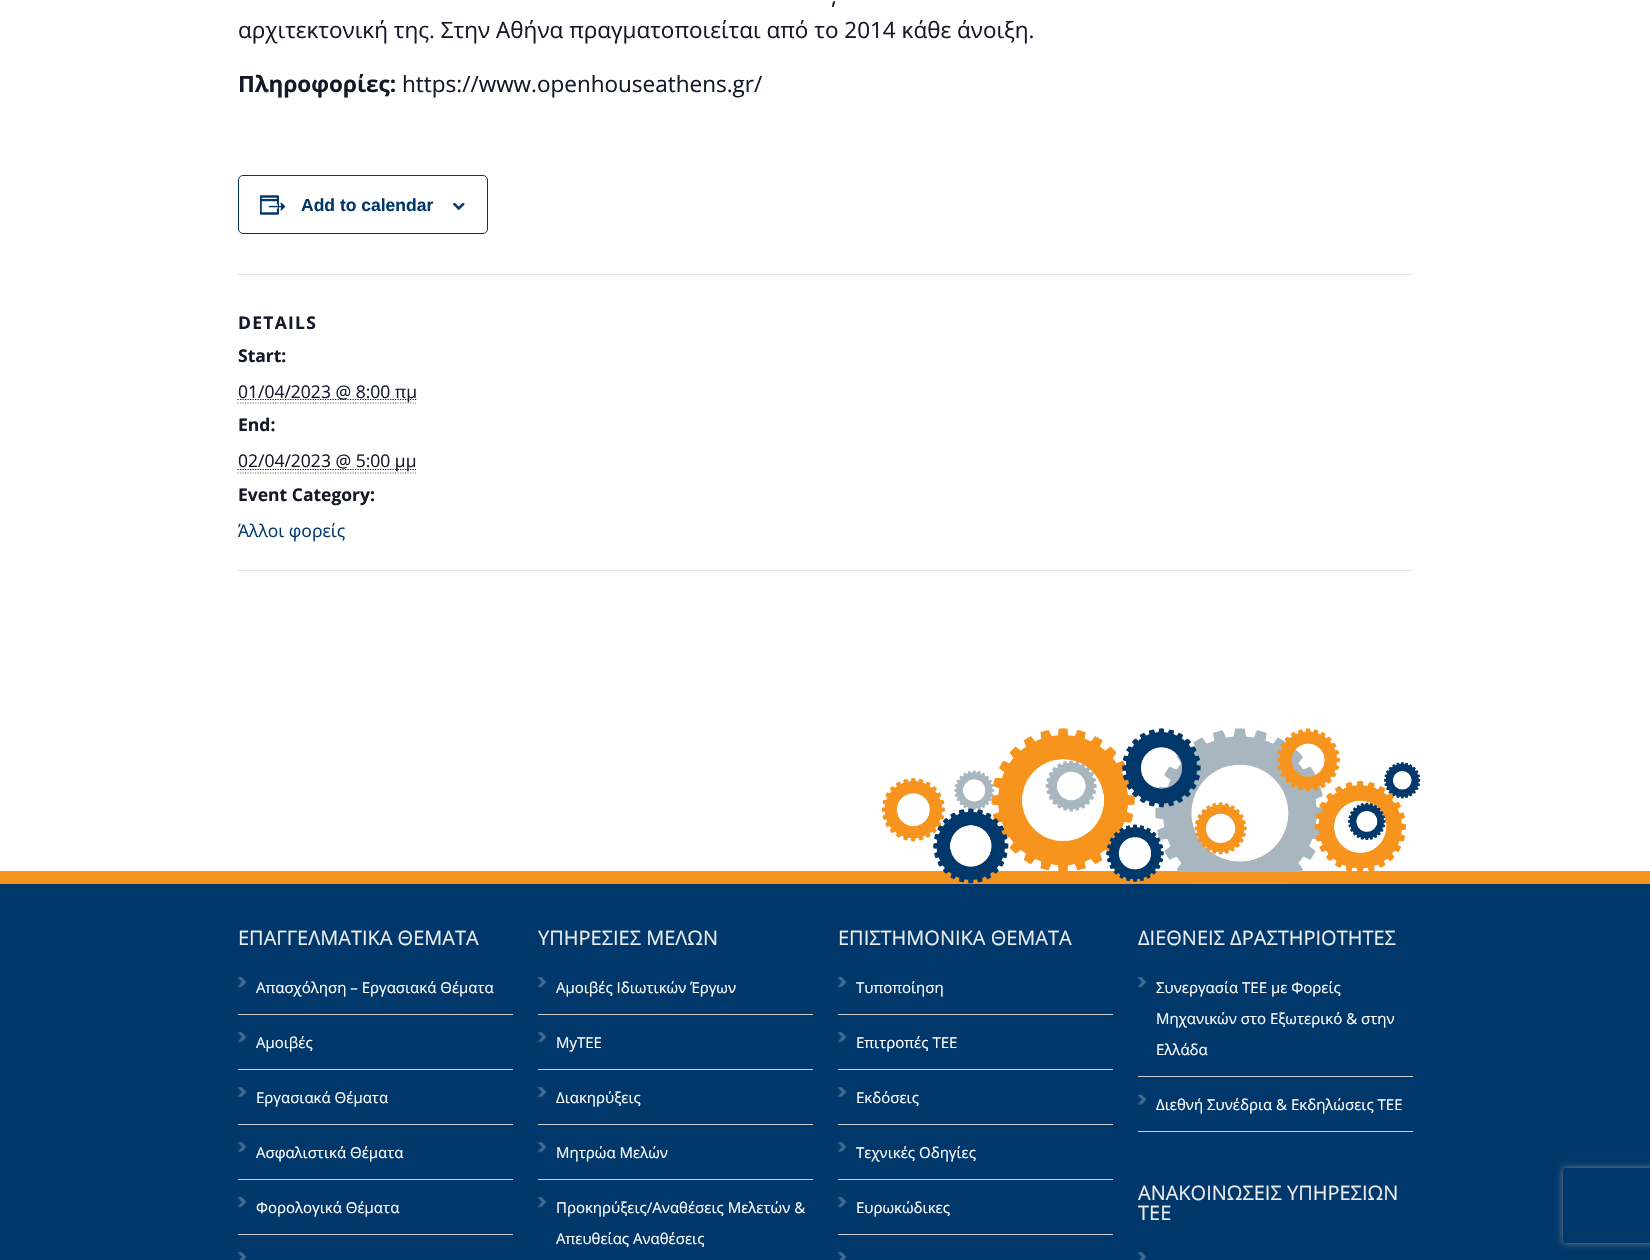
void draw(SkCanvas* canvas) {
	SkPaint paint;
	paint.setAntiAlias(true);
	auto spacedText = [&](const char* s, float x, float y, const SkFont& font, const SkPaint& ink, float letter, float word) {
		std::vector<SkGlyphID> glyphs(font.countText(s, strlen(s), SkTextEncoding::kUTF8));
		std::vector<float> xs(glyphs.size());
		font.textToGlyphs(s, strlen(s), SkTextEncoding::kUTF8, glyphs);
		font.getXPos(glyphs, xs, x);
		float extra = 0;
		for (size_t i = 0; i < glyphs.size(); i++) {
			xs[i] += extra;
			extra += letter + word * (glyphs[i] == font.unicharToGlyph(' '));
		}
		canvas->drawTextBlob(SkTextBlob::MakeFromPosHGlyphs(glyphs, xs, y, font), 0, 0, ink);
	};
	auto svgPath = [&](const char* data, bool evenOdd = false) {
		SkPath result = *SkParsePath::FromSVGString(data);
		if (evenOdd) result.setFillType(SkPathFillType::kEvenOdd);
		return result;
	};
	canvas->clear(0xffffffff);
	SkFont f1(fontMgr->matchFamilyStyle("Open Sans", SkFontStyle::Normal()), 22.5);
	f1.setSubpixel(true);
	paint.setColor(0xff141827);
	canvas->drawString(",", 831, 4, f1, paint);
	canvas->drawString("αρχιτεκτονική της. Στην Αθήνα πραγματοποιείται από το 2014 κάθε άνοιξη.", 238, 38, f1, paint);
	SkFont f2(fontMgr->matchFamilyStyle("Open Sans", SkFontStyle::Bold()), 22.5);
	f2.setSubpixel(true);
	canvas->drawString("Πληροφορίες:", 238, 92, f2, paint);
	canvas->drawString("https://www.openhouseathens.gr/", 402, 92, f1, paint);
	paint.setStroke(true);
	paint.setStrokeWidth(1);
	paint.setColor(0xff00386c);
	canvas->drawRoundRect(SkRect::MakeXYWH(238.5, 175.5, 249, 58), 4.5, 4.5, paint);
	canvas->drawImageRect(SkImages::DeferredFromEncodedData(SkData::MakeFromFileName("img1.png")), SkRect::MakeXYWH(260, 195, 26, 20), SkSamplingOptions());
	SkFont f3(fontMgr->matchFamilyStyle("Liberation Sans", SkFontStyle::Bold()), 17.5);
	f3.setSubpixel(true);
	paint.setStroke(false);
	canvas->drawString("Add to calendar", 301, 211, f3, paint);
	canvas->drawImageRect(SkImages::DeferredFromEncodedData(SkData::MakeFromFileName("img2.png")), SkRect::MakeXYWH(453, 203, 12, 7), SkSamplingOptions());
	paint.setColor(0xffe4e4e4);
	canvas->drawRect(SkRect::MakeXYWH(238, 274, 1175, 1), paint);
	SkFont f4(fontMgr->matchFamilyStyle("Open Sans", SkFontStyle::Bold()), 17.5);
	f4.setSubpixel(true);
	paint.setColor(0xff141827);
	spacedText("DETAILS", 238, 329, f4, paint, 1.25, 0);
	canvas->drawString("Start:", 238, 362, f4, paint);
	paint.setStroke(true);
	paint.setStrokeWidth(1.2);
	paint.setColor(0xff777777);
	paint.setPathEffect(SkDashPathEffect::Make({{1.25f, 1.25f}}, 0));
	canvas->drawPath(svgPath("M237.5 403H416"), paint);
	paint.setPathEffect(nullptr);
	paint.setColor(0xff141827);
	paint.setPathEffect(SkDashPathEffect::Make({{1.25f, 1.25f}}, 0));
	canvas->drawPath(svgPath("M237.5 399.5H416.5"), paint);
	paint.setPathEffect(nullptr);
	SkFont f5(fontMgr->matchFamilyStyle("Open Sans", SkFontStyle::Normal()), 17.5);
	f5.setSubpixel(true);
	paint.setStroke(false);
	canvas->drawString("01/04/2023 @ 8:00 πμ", 238, 398, f5, paint);
	canvas->drawString("End:", 238, 431, f4, paint);
	paint.setStroke(true);
	paint.setPathEffect(SkDashPathEffect::Make({{1.25f, 1.25f}}, 0));
	canvas->drawPath(svgPath("M237.5 469.5H416"), paint);
	paint.setPathEffect(nullptr);
	paint.setStroke(false);
	canvas->drawString("02/04/2023 @ 5:00 μμ", 238, 467, f5, paint);
	paint.setStroke(true);
	paint.setColor(0xff777777);
	paint.setPathEffect(SkDashPathEffect::Make({{1.25f, 1.25f}}, 0));
	canvas->drawPath(svgPath("M237.5 473H416"), paint);
	paint.setPathEffect(nullptr);
	paint.setStroke(false);
	paint.setColor(0xff141827);
	canvas->drawString("Event Category:", 238, 501, f4, paint);
	canvas->save();
	canvas->clipRect(SkRect::MakeXYWH(238, 0, 1175, 570));
	paint.setColor(0xff00386c);
	canvas->drawString("Άλλοι φορείς", 238, 537, f5, paint);
	canvas->restore();
	paint.setColor(0xffe4e4e4);
	canvas->drawRect(SkRect::MakeXYWH(238, 570, 1175, 1), paint);
	canvas->drawImageRect(SkImages::DeferredFromEncodedData(SkData::MakeFromFileName("img3.png")), SkRect::MakeXYWH(882, 728, 539, 143), SkSamplingOptions());
	paint.setColor(0xfff7941e);
	canvas->drawRect(SkRect::MakeXYWH(0, 871, 1650, 13), paint);
	canvas->drawImageRect(SkImages::DeferredFromEncodedData(SkData::MakeFromFileName("img4.png")), SkRect::MakeXYWH(882, 728, 539, 156), SkSamplingOptions());
	paint.setColor(0xff00386c);
	canvas->drawRect(SkRect::MakeXYWH(0, 884, 1650, 376), paint);
	SkFont f6(fontMgr->matchFamilyStyle("Open Sans", SkFontStyle::Normal()), 20);
	f6.setSubpixel(true);
	paint.setColor(0xffececec);
	canvas->drawString("ΕΠΑΓΓΕΛΜΑΤΙΚΑ ΘΕΜΑΤΑ", 238, 945, f6, paint);
	canvas->drawImageRect(SkImages::DeferredFromEncodedData(SkData::MakeFromFileName("img5.png")), SkRect::MakeXYWH(237, 977, 10, 11), SkSamplingOptions());
	paint.setColor(0xffcccccc);
	canvas->drawRect(SkRect::MakeXYWH(238, 1014, 275, 1), paint);
	SkFont f7(fontMgr->matchFamilyStyle("Open Sans", SkFontStyle::Normal()), 15);
	f7.setSubpixel(true);
	paint.setColor(0xffffffff);
	canvas->drawString("Απασχόληση – Εργασιακά Θέματα", 256, 993, f7, paint);
	canvas->drawImageRect(SkImages::DeferredFromEncodedData(SkData::MakeFromFileName("img5.png")), SkRect::MakeXYWH(237, 1032, 10, 11), SkSamplingOptions());
	paint.setColor(0xffcccccc);
	canvas->drawRect(SkRect::MakeXYWH(238, 1069, 275, 1), paint);
	paint.setColor(0xffffffff);
	canvas->drawString("Αμοιβές", 256, 1048, f7, paint);
	canvas->drawImageRect(SkImages::DeferredFromEncodedData(SkData::MakeFromFileName("img5.png")), SkRect::MakeXYWH(237, 1087, 10, 11), SkSamplingOptions());
	paint.setColor(0xffcccccc);
	canvas->drawRect(SkRect::MakeXYWH(238, 1124, 275, 1), paint);
	paint.setColor(0xffffffff);
	canvas->drawString("Εργασιακά Θέματα", 256, 1103, f7, paint);
	canvas->drawImageRect(SkImages::DeferredFromEncodedData(SkData::MakeFromFileName("img5.png")), SkRect::MakeXYWH(237, 1142, 10, 11), SkSamplingOptions());
	paint.setColor(0xffcccccc);
	canvas->drawRect(SkRect::MakeXYWH(238, 1179, 275, 1), paint);
	paint.setColor(0xffffffff);
	canvas->drawString("Ασφαλιστικά Θέματα", 256, 1158, f7, paint);
	canvas->drawImageRect(SkImages::DeferredFromEncodedData(SkData::MakeFromFileName("img5.png")), SkRect::MakeXYWH(237, 1197, 10, 11), SkSamplingOptions());
	paint.setColor(0xffcccccc);
	canvas->drawRect(SkRect::MakeXYWH(238, 1234, 275, 1), paint);
	paint.setColor(0xffffffff);
	canvas->drawString("Φορολογικά Θέματα", 256, 1213, f7, paint);
	canvas->drawImageRect(SkImages::DeferredFromEncodedData(SkData::MakeFromFileName("img6.png")), SkRect::MakeXYWH(237, 1252, 10, 8), SkSamplingOptions());
	paint.setColor(0xffececec);
	canvas->drawString("ΥΠΗΡΕΣΙΕΣ ΜΕΛΩΝ", 538, 945, f6, paint);
	canvas->drawImageRect(SkImages::DeferredFromEncodedData(SkData::MakeFromFileName("img7.png")), SkRect::MakeXYWH(537, 977, 10, 11), SkSamplingOptions());
	paint.setColor(0xffcccccc);
	canvas->drawRect(SkRect::MakeXYWH(538, 1014, 275, 1), paint);
	paint.setColor(0xffffffff);
	canvas->drawString("Αμοιβές Ιδιωτικών Έργων", 556, 993, f7, paint);
	canvas->drawImageRect(SkImages::DeferredFromEncodedData(SkData::MakeFromFileName("img7.png")), SkRect::MakeXYWH(537, 1032, 10, 11), SkSamplingOptions());
	paint.setColor(0xffcccccc);
	canvas->drawRect(SkRect::MakeXYWH(538, 1069, 275, 1), paint);
	paint.setColor(0xffffffff);
	canvas->drawString("MyTEE", 556, 1048, f7, paint);
	canvas->drawImageRect(SkImages::DeferredFromEncodedData(SkData::MakeFromFileName("img7.png")), SkRect::MakeXYWH(537, 1087, 10, 11), SkSamplingOptions());
	paint.setColor(0xffcccccc);
	canvas->drawRect(SkRect::MakeXYWH(538, 1124, 275, 1), paint);
	paint.setColor(0xffffffff);
	canvas->drawString("Διακηρύξεις", 556, 1103, f7, paint);
	canvas->drawImageRect(SkImages::DeferredFromEncodedData(SkData::MakeFromFileName("img7.png")), SkRect::MakeXYWH(537, 1142, 10, 11), SkSamplingOptions());
	paint.setColor(0xffcccccc);
	canvas->drawRect(SkRect::MakeXYWH(538, 1179, 275, 1), paint);
	paint.setColor(0xffffffff);
	canvas->drawString("Μητρώα Μελών", 556, 1158, f7, paint);
	canvas->drawImageRect(SkImages::DeferredFromEncodedData(SkData::MakeFromFileName("img7.png")), SkRect::MakeXYWH(537, 1197, 10, 11), SkSamplingOptions());
	canvas->drawString("Προκηρύξεις/Αναθέσεις Μελετών &", 556, 1213, f7, paint);
	canvas->drawString("Απευθείας Αναθέσεις", 556, 1244, f7, paint);
	paint.setColor(0xffececec);
	canvas->drawString("ΕΠΙΣΤΗΜΟΝΙΚΑ ΘΕΜΑΤΑ", 838, 945, f6, paint);
	canvas->drawImageRect(SkImages::DeferredFromEncodedData(SkData::MakeFromFileName("img7.png")), SkRect::MakeXYWH(837, 977, 10, 11), SkSamplingOptions());
	paint.setColor(0xffcccccc);
	canvas->drawRect(SkRect::MakeXYWH(838, 1014, 275, 1), paint);
	paint.setColor(0xffffffff);
	canvas->drawString("Τυποποίηση", 856, 993, f7, paint);
	canvas->drawImageRect(SkImages::DeferredFromEncodedData(SkData::MakeFromFileName("img7.png")), SkRect::MakeXYWH(837, 1032, 10, 11), SkSamplingOptions());
	paint.setColor(0xffcccccc);
	canvas->drawRect(SkRect::MakeXYWH(838, 1069, 275, 1), paint);
	paint.setColor(0xffffffff);
	canvas->drawString("Επιτροπές ΤΕΕ", 856, 1048, f7, paint);
	canvas->drawImageRect(SkImages::DeferredFromEncodedData(SkData::MakeFromFileName("img7.png")), SkRect::MakeXYWH(837, 1087, 10, 11), SkSamplingOptions());
	paint.setColor(0xffcccccc);
	canvas->drawRect(SkRect::MakeXYWH(838, 1124, 275, 1), paint);
	paint.setColor(0xffffffff);
	canvas->drawString("Εκδόσεις", 856, 1103, f7, paint);
	canvas->drawImageRect(SkImages::DeferredFromEncodedData(SkData::MakeFromFileName("img7.png")), SkRect::MakeXYWH(837, 1142, 10, 11), SkSamplingOptions());
	paint.setColor(0xffcccccc);
	canvas->drawRect(SkRect::MakeXYWH(838, 1179, 275, 1), paint);
	paint.setColor(0xffffffff);
	canvas->drawString("Τεχνικές Οδηγίες", 856, 1158, f7, paint);
	canvas->drawImageRect(SkImages::DeferredFromEncodedData(SkData::MakeFromFileName("img7.png")), SkRect::MakeXYWH(837, 1197, 10, 11), SkSamplingOptions());
	paint.setColor(0xffcccccc);
	canvas->drawRect(SkRect::MakeXYWH(838, 1234, 275, 1), paint);
	paint.setColor(0xffffffff);
	canvas->drawString("Ευρωκώδικες", 856, 1213, f7, paint);
	canvas->drawImageRect(SkImages::DeferredFromEncodedData(SkData::MakeFromFileName("img8.png")), SkRect::MakeXYWH(837, 1252, 10, 8), SkSamplingOptions());
	paint.setColor(0xffececec);
	canvas->drawString("ΔΙΕΘΝΕΙΣ ΔΡΑΣΤΗΡΙΟΤΗΤΕΣ", 1138, 945, f6, paint);
	canvas->drawImageRect(SkImages::DeferredFromEncodedData(SkData::MakeFromFileName("img7.png")), SkRect::MakeXYWH(1137, 977, 10, 11), SkSamplingOptions());
	paint.setColor(0xffcccccc);
	canvas->drawRect(SkRect::MakeXYWH(1138, 1076, 275, 1), paint);
	paint.setColor(0xffffffff);
	canvas->drawString("Συνεργασία ΤΕΕ με Φορείς", 1156, 993, f7, paint);
	canvas->drawString("Μηχανικών στο Εξωτερικό & στην", 1156, 1024, f7, paint);
	canvas->drawString("Ελλάδα", 1156, 1055, f7, paint);
	canvas->drawImageRect(SkImages::DeferredFromEncodedData(SkData::MakeFromFileName("img9.png")), SkRect::MakeXYWH(1137, 1094, 10, 11), SkSamplingOptions());
	paint.setColor(0xffcccccc);
	canvas->drawRect(SkRect::MakeXYWH(1138, 1131, 275, 1), paint);
	paint.setColor(0xffffffff);
	canvas->drawString("Διεθνή Συνέδρια & Εκδηλώσεις ΤΕΕ", 1156, 1110, f7, paint);
	paint.setColor(0xffececec);
	canvas->drawString("ΑΝΑΚΟΙΝΩΣΕΙΣ ΥΠΗΡΕΣΙΩΝ", 1138, 1200, f6, paint);
	canvas->drawString("ΤΕΕ", 1138, 1220, f6, paint);
	canvas->drawImageRect(SkImages::DeferredFromEncodedData(SkData::MakeFromFileName("img8.png")), SkRect::MakeXYWH(1137, 1252, 10, 8), SkSamplingOptions());
	canvas->save();
	canvas->clipPath(svgPath("M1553 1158H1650V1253H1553ZM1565.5 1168H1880.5C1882 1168 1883 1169 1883 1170.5V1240.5C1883 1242 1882 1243 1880.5 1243H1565.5C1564 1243 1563 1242 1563 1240.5V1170.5C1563 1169 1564 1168 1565.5 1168Z", true), true);
	paint.setColor(0xff808080);
	paint.setMaskFilter(SkMaskFilter::MakeBlur(kNormal_SkBlurStyle, 3));
	canvas->drawRoundRect(SkRect::MakeXYWH(1563, 1168, 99, 75), 2.5, 2.5, paint);
	paint.setMaskFilter(nullptr);
	canvas->restore();
}
